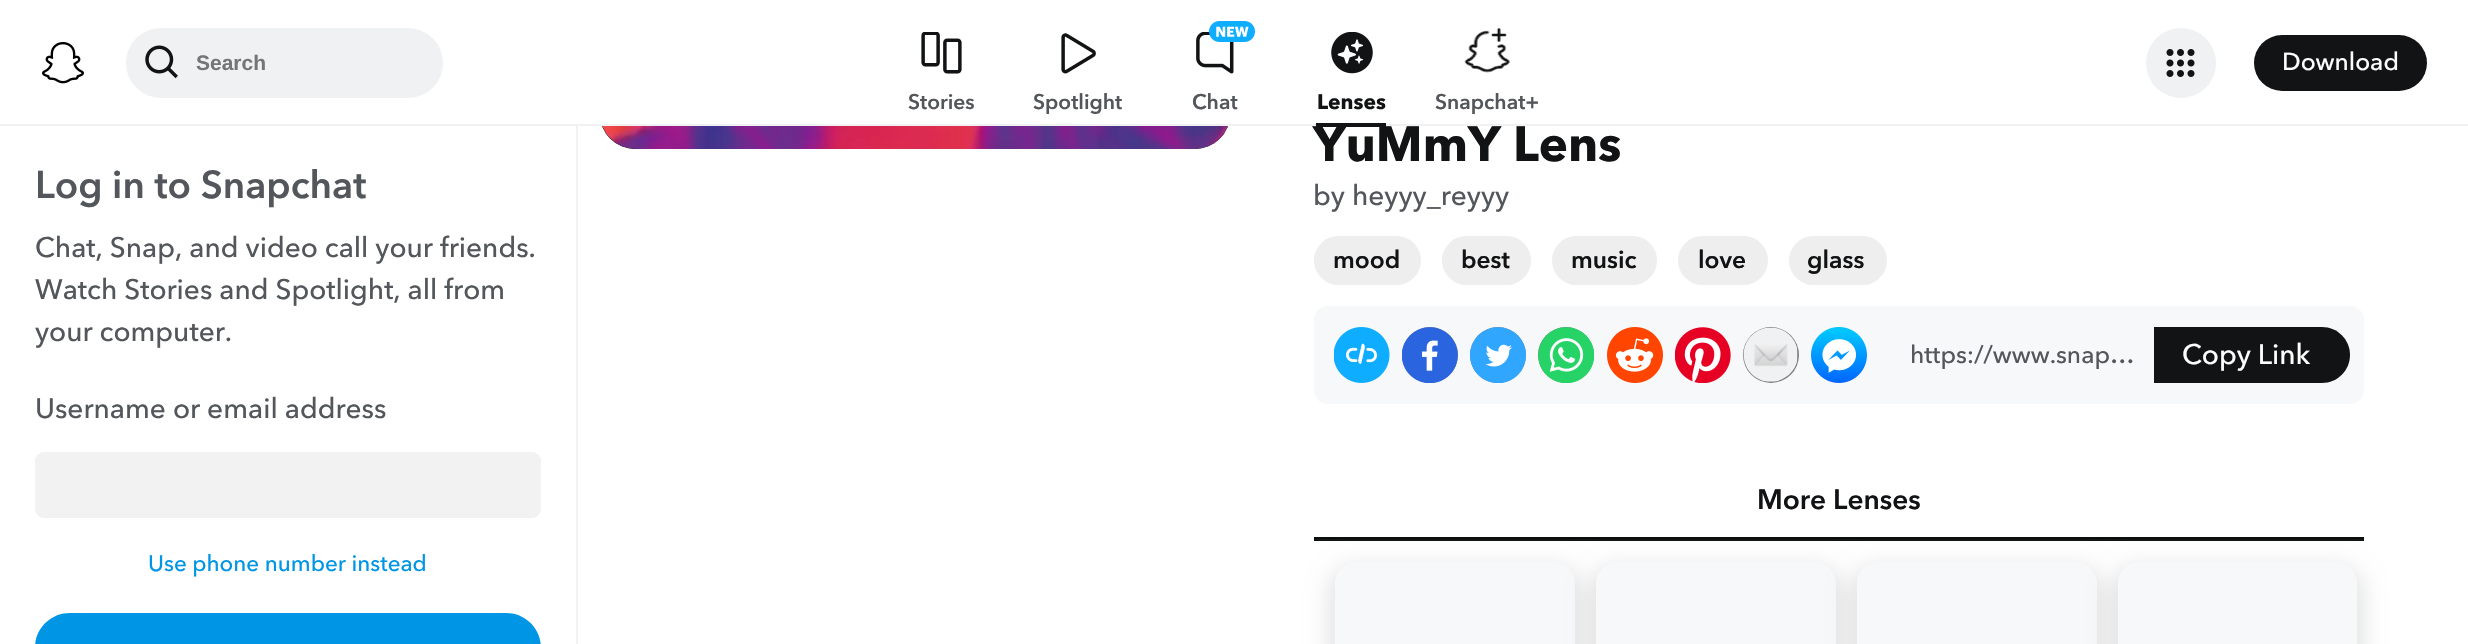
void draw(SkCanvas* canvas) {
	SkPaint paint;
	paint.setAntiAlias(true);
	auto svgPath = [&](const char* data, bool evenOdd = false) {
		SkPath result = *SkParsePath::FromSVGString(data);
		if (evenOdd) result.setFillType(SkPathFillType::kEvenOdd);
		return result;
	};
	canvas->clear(0xffffffff);
	paint.setColor(0xff000000);
	canvas->drawRoundRect(SkRect::MakeXYWH(600, -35, 630, 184), 35, 35, paint);
	paint.setColor(0xffffffff);
	canvas->drawRect(SkRect::MakeXYWH(600, 0, 630, 124), paint);
	paint.setColor(0xfff0f1f2);
	canvas->drawRect(SkRect::MakeXYWH(0, 124, 2468, 2), paint);
	canvas->drawImageRect(SkImages::DeferredFromEncodedData(SkData::MakeFromFileName("img1.png")), SkRect::MakeXYWH(42, 42, 42, 42), SkSamplingOptions());
	canvas->drawRoundRect(SkRect::MakeXYWH(126, 28, 317, 70), 35, 35, paint);
	canvas->drawImageRect(SkImages::DeferredFromEncodedData(SkData::MakeFromFileName("img2.png")), SkRect::MakeXYWH(145, 45, 33, 34), SkSamplingOptions());
	SkFont f1(fontMgr->matchFamilyStyle("Liberation Sans", SkFontStyle::Bold()), 21);
	f1.setSubpixel(true);
	paint.setColor(0xff757575);
	canvas->drawString("Search", 196, 70, f1, paint);
	paint.setColor(0xfff0f1f2);
	canvas->drawCircle(2181, 63, 35, paint);
	canvas->drawImageRect(SkImages::DeferredFromEncodedData(SkData::MakeFromFileName("img3.png")), SkRect::MakeXYWH(2166, 49, 29, 28), SkSamplingOptions());
	paint.setColor(0xff121314);
	canvas->drawRoundRect(SkRect::MakeXYWH(2254, 35, 173, 56), 28, 28, paint);
	SkFont f2(fontMgr->matchFamilyStyle("Avenir Next", SkFontStyle(500, SkFontStyle::kNormal_Width, SkFontStyle::kUpright_Slant)), 24.5);
	f2.setSubpixel(true);
	paint.setColor(0xffffffff);
	canvas->drawString("Download", 2282, 70, f2, paint);
	canvas->drawImageRect(SkImages::DeferredFromEncodedData(SkData::MakeFromFileName("img4.png")), SkRect::MakeXYWH(921, 32, 41, 42), SkSamplingOptions());
	SkFont f3(fontMgr->matchFamilyStyle("Avenir Next", SkFontStyle(600, SkFontStyle::kNormal_Width, SkFontStyle::kUpright_Slant)), 21);
	f3.setSubpixel(true);
	paint.setColor(0xff53575b);
	canvas->drawString("Stories", 908, 109, f3, paint);
	canvas->drawImageRect(SkImages::DeferredFromEncodedData(SkData::MakeFromFileName("img5.png")), SkRect::MakeXYWH(1061, 33, 35, 41), SkSamplingOptions());
	canvas->drawString("Spotlight", 1033, 109, f3, paint);
	canvas->drawImageRect(SkImages::DeferredFromEncodedData(SkData::MakeFromFileName("img7.png")), SkRect::MakeXYWH(1196, 32, 38, 42), SkSamplingOptions());
	canvas->drawImageRect(SkImages::DeferredFromEncodedData(SkData::MakeFromFileName("img6.png")), SkRect::MakeXYWH(1209, 21, 46, 21), SkSamplingOptions());
	canvas->drawString("Chat", 1192, 109, f3, paint);
	canvas->drawImageRect(SkImages::DeferredFromEncodedData(SkData::MakeFromFileName("img8.png")), SkRect::MakeXYWH(1331, 32, 42, 42), SkSamplingOptions());
	paint.setColor(0xff121314);
	canvas->drawRect(SkRect::MakeXYWH(1316, 123, 70, 4), paint);
	SkFont f4(fontMgr->matchFamilyStyle("Avenir Next", SkFontStyle::Bold()), 21);
	f4.setSubpixel(true);
	canvas->drawString("Lenses", 1317, 109, f4, paint);
	canvas->drawImageRect(SkImages::DeferredFromEncodedData(SkData::MakeFromFileName("img9.png")), SkRect::MakeXYWH(1464, 28, 46, 45), SkSamplingOptions());
	paint.setColor(0xff53575b);
	canvas->drawString("Snapchat+", 1435, 109, f3, paint);
	canvas->drawImageRect(SkImages::DeferredFromEncodedData(SkData::MakeFromFileName("img10.png")), SkRect::MakeXYWH(602, 126, 626, 23), SkSamplingOptions());
	SkFont f5(fontMgr->matchFamilyStyle("Avenir Next", SkFontStyle::Bold()), 49);
	f5.setSubpixel(true);
	paint.setColor(0xff121314);
	canvas->drawString("YuMmY Lens", 1313, 161, f5, paint);
	SkFont f6(fontMgr->matchFamilyStyle("Avenir Next", SkFontStyle(500, SkFontStyle::kNormal_Width, SkFontStyle::kUpright_Slant)), 28);
	f6.setSubpixel(true);
	paint.setColor(0xff53575b);
	canvas->drawString("by heyyy_reyyy", 1313, 205, f6, paint);
	paint.setColor(0xffeeeeee);
	canvas->drawRoundRect(SkRect::MakeXYWH(1314, 236, 107, 49), 24.5, 24.5, paint);
	SkFont f7(fontMgr->matchFamilyStyle("Avenir Next", SkFontStyle(600, SkFontStyle::kNormal_Width, SkFontStyle::kUpright_Slant)), 24.5);
	f7.setSubpixel(true);
	paint.setColor(0xff121314);
	canvas->drawString("mood", 1333, 268, f7, paint);
	paint.setColor(0xffeeeeee);
	canvas->drawRoundRect(SkRect::MakeXYWH(1442, 236, 89, 49), 24.5, 24.5, paint);
	paint.setColor(0xff121314);
	canvas->drawString("best", 1461, 268, f7, paint);
	paint.setColor(0xffeeeeee);
	canvas->drawRoundRect(SkRect::MakeXYWH(1552, 236, 105, 49), 24.5, 24.5, paint);
	paint.setColor(0xff121314);
	canvas->drawString("music", 1571, 268, f7, paint);
	paint.setColor(0xffeeeeee);
	canvas->drawRoundRect(SkRect::MakeXYWH(1678, 236, 90, 49), 24.5, 24.5, paint);
	paint.setColor(0xff121314);
	canvas->drawString("love", 1698, 268, f7, paint);
	paint.setColor(0xffeeeeee);
	canvas->drawRoundRect(SkRect::MakeXYWH(1789, 236, 98, 49), 24.5, 24.5, paint);
	paint.setColor(0xff121314);
	canvas->drawString("glass", 1807, 268, f7, paint);
	paint.setColor(0xfff7f8f9);
	canvas->drawRoundRect(SkRect::MakeXYWH(1314, 306, 1050, 98), 14, 14, paint);
	canvas->drawImageRect(SkImages::DeferredFromEncodedData(SkData::MakeFromFileName("img11.png")), SkRect::MakeXYWH(1334, 327, 56, 56), SkSamplingOptions());
	paint.setColor(0xff7c7c7d);
	canvas->drawCircle(1430, 355, 28, paint);
	canvas->drawImageRect(SkImages::DeferredFromEncodedData(SkData::MakeFromFileName("img12.png")), SkRect::MakeXYWH(1402, 327, 56, 56), SkSamplingOptions());
	canvas->drawCircle(1498, 355, 28, paint);
	canvas->drawImageRect(SkImages::DeferredFromEncodedData(SkData::MakeFromFileName("img13.png")), SkRect::MakeXYWH(1470, 327, 56, 56), SkSamplingOptions());
	canvas->drawCircle(1566, 355, 28, paint);
	canvas->drawImageRect(SkImages::DeferredFromEncodedData(SkData::MakeFromFileName("img14.png")), SkRect::MakeXYWH(1538, 327, 56, 56), SkSamplingOptions());
	canvas->drawImageRect(SkImages::DeferredFromEncodedData(SkData::MakeFromFileName("img15.png")), SkRect::MakeXYWH(1607, 327, 56, 56), SkSamplingOptions());
	canvas->drawImageRect(SkImages::DeferredFromEncodedData(SkData::MakeFromFileName("img16.png")), SkRect::MakeXYWH(1675, 327, 56, 56), SkSamplingOptions());
	canvas->drawCircle(1771, 355, 28, paint);
	canvas->drawImageRect(SkImages::DeferredFromEncodedData(SkData::MakeFromFileName("img17.png")), SkRect::MakeXYWH(1743, 327, 55, 55), SkSamplingOptions());
	canvas->drawImageRect(SkImages::DeferredFromEncodedData(SkData::MakeFromFileName("img18.png")), SkRect::MakeXYWH(1811, 327, 56, 56), SkSamplingOptions());
	paint.setColor(0xff53575b);
	canvas->drawString("https://www.snap…", 1910, 363, f2, paint);
	paint.setColor(0xff121314);
	canvas->drawPath(svgPath("M2154 327H2322C2337.5 327 2350 339.5 2350 355C2350 370.5 2337.5 383 2322 383H2154Z"), paint);
	paint.setColor(0xffffffff);
	canvas->drawString("Copy Link", 2182, 364, f6, paint);
	SkFont f8(fontMgr->matchFamilyStyle("Avenir Next", SkFontStyle(600, SkFontStyle::kNormal_Width, SkFontStyle::kUpright_Slant)), 28);
	f8.setSubpixel(true);
	paint.setColor(0xff121314);
	canvas->drawString("More Lenses", 1757, 509, f8, paint);
	paint.setColor(0xff0c0d0d);
	canvas->drawRect(SkRect::MakeXYWH(1314, 537, 1050, 2), paint);
	paint.setColor(0xff121314);
	canvas->drawRect(SkRect::MakeXYWH(2363, 537, 1, 4), paint);
	canvas->drawRect(SkRect::MakeXYWH(1314, 539, 1050, 2), paint);
	paint.setColor(0xff0c0d0d);
	canvas->drawRect(SkRect::MakeXYWH(1314, 537, 2, 4), paint);
	paint.setColor(0x1a000000);
	paint.setMaskFilter(SkMaskFilter::MakeBlur(kNormal_SkBlurStyle, 10.5));
	canvas->drawRoundRect(SkRect::MakeXYWH(1328, 565, 254, 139), 28, 28, paint);
	paint.setMaskFilter(nullptr);
	paint.setColor(0xfff7f8f9);
	canvas->drawRoundRect(SkRect::MakeXYWH(1335, 562, 240, 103), 21, 21, paint);
	paint.setColor(0x1a000000);
	paint.setMaskFilter(SkMaskFilter::MakeBlur(kNormal_SkBlurStyle, 10.5));
	canvas->drawRoundRect(SkRect::MakeXYWH(1589, 565, 254, 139), 28, 28, paint);
	paint.setMaskFilter(nullptr);
	paint.setColor(0xfff7f8f9);
	canvas->drawRoundRect(SkRect::MakeXYWH(1596, 562, 240, 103), 21, 21, paint);
	paint.setColor(0x1a000000);
	paint.setMaskFilter(SkMaskFilter::MakeBlur(kNormal_SkBlurStyle, 10.5));
	canvas->drawRoundRect(SkRect::MakeXYWH(1850, 565, 254, 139), 28, 28, paint);
	paint.setMaskFilter(nullptr);
	paint.setColor(0xfff7f8f9);
	canvas->drawRoundRect(SkRect::MakeXYWH(1857, 562, 240, 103), 21, 21, paint);
	paint.setColor(0x1a000000);
	paint.setMaskFilter(SkMaskFilter::MakeBlur(kNormal_SkBlurStyle, 10.5));
	canvas->drawRoundRect(SkRect::MakeXYWH(2111, 565, 253, 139), 28, 28, paint);
	paint.setMaskFilter(nullptr);
	paint.setColor(0xfff7f8f9);
	canvas->drawRoundRect(SkRect::MakeXYWH(2118, 562, 239, 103), 21, 21, paint);
	paint.setColor(0xfff0f1f2);
	canvas->drawRect(SkRect::MakeXYWH(576, 126, 2, 518), paint);
	SkFont f9(fontMgr->matchFamilyStyle("Avenir Next", SkFontStyle(600, SkFontStyle::kNormal_Width, SkFontStyle::kUpright_Slant)), 38.5);
	f9.setSubpixel(true);
	paint.setColor(0xff53575b);
	canvas->drawString("Log in to Snapchat", 35, 198, f9, paint);
	canvas->drawString("Chat, Snap, and video call your friends.", 35, 257, f6, paint);
	canvas->drawString("Watch Stories and Spotlight, all from", 35, 299, f6, paint);
	canvas->drawString("your computer.", 35, 341, f6, paint);
	canvas->drawString("Username or email address", 35, 418, f6, paint);
	paint.setColor(0xfff2f2f2);
	canvas->drawRoundRect(SkRect::MakeXYWH(35, 452, 506, 66), 9, 9, paint);
	SkFont f10(fontMgr->matchFamilyStyle("Avenir Next", SkFontStyle(500, SkFontStyle::kNormal_Width, SkFontStyle::kUpright_Slant)), 22.4);
	f10.setSubpixel(true);
	paint.setColor(0xff0096e5);
	canvas->drawString("Use phone number instead", 148, 571, f10, paint);
	canvas->drawPath(svgPath("M70 613H506C525.5 613 541 628.5 541 648V644H35V648C35 628.5 50.5 613 70 613Z"), paint);
}
